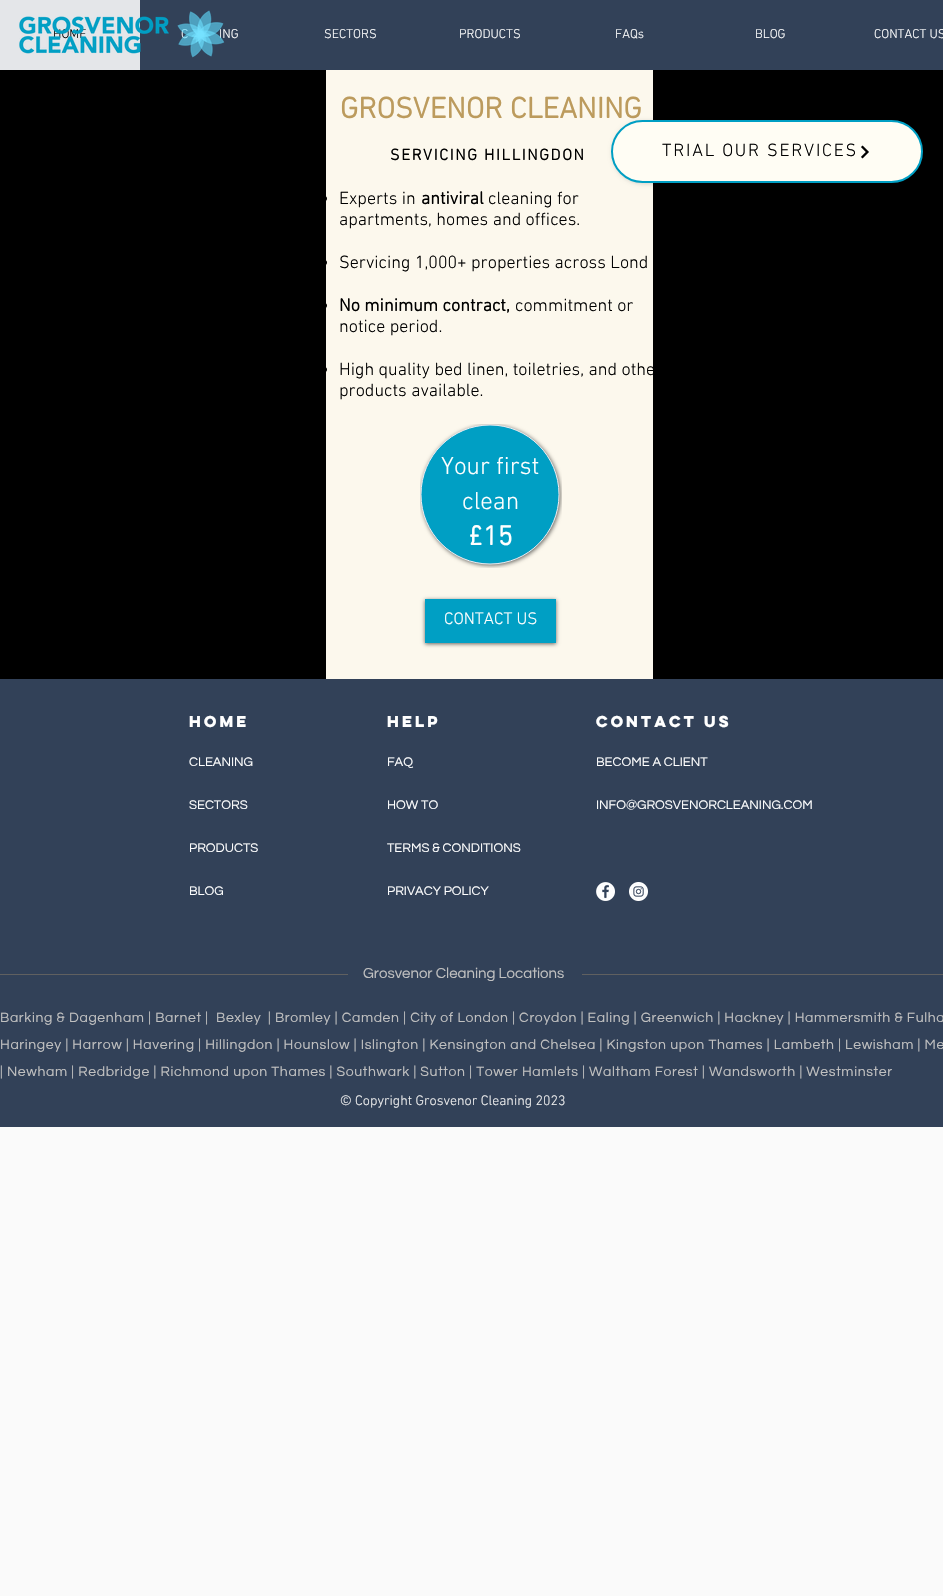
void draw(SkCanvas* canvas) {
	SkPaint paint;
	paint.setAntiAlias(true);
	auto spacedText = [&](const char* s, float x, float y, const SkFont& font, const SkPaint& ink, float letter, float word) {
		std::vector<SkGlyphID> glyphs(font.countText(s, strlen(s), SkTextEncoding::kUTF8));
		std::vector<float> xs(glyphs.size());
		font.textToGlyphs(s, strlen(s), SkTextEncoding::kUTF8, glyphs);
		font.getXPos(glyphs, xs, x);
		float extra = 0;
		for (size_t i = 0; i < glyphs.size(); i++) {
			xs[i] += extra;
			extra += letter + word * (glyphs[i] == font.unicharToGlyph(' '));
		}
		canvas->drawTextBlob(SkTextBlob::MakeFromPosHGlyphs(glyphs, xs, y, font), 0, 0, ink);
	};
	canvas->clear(0xfffafafa);
	paint.setColor(0xff324158);
	canvas->drawRect(SkRect::MakeXYWH(140, 0, 803, 70), paint);
	paint.setColor(0xffe4e6e9);
	canvas->drawRect(SkRect::MakeXYWH(0, 0, 140, 70), paint);
	SkFont f1(fontMgr->matchFamilyStyle("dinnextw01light", SkFontStyle(300, SkFontStyle::kNormal_Width, SkFontStyle::kUpright_Slant)), 13);
	f1.setSubpixel(true);
	paint.setColor(0xff000000);
	canvas->drawString("HOME", 53, 38, f1, paint);
	canvas->drawImageRect(SkImages::DeferredFromEncodedData(SkData::MakeFromFileName("img1.png")), SkRect::MakeXYWH(19, 16, 150, 38), SkSamplingOptions());
	paint.setColor(0xffffffff);
	canvas->drawString("C", 181, 38, f1, paint);
	canvas->drawString("ING", 219, 38, f1, paint);
	canvas->drawImageRect(SkImages::DeferredFromEncodedData(SkData::MakeFromFileName("img2.png")), SkRect::MakeXYWH(177, 10, 48, 48), SkSamplingOptions());
	canvas->drawString("SECTORS", 324, 38, f1, paint);
	canvas->drawString("PRODUCTS", 459, 38, f1, paint);
	canvas->drawString("FAQs", 615, 38, f1, paint);
	canvas->drawString("BLOG", 755, 38, f1, paint);
	canvas->drawString("CONTACT US", 874, 38, f1, paint);
	paint.setColor(0xff000000);
	canvas->drawRect(SkRect::MakeXYWH(0, 70, 326, 609), paint);
	paint.setColor(0xfffcf8ed);
	canvas->drawRect(SkRect::MakeXYWH(326, 70, 327, 609), paint);
	SkFont f2(fontMgr->matchFamilyStyle("dinnextw01light", SkFontStyle::Bold()), 30);
	f2.setSubpixel(true);
	paint.setColor(0xffbc9b5d);
	canvas->drawString("GROSVENOR CLEANING", 340, 118, f2, paint);
	SkFont f3(fontMgr->matchFamilyStyle("dinnextw01light", SkFontStyle::Bold()), 16);
	f3.setSubpixel(true);
	paint.setColor(0xff000000);
	spacedText("SERVICING HILLINGDON", 390, 160, f3, paint, 1.6, 0);
	canvas->drawCircle(324.5, 198.5, 2.5, paint);
	SkFont f4(fontMgr->matchFamilyStyle("dinnextw01light", SkFontStyle(300, SkFontStyle::kNormal_Width, SkFontStyle::kUpright_Slant)), 18);
	f4.setSubpixel(true);
	canvas->drawString("Experts in", 339, 204, f4, paint);
	SkFont f5(fontMgr->matchFamilyStyle("dinnextw01light", SkFontStyle::Bold()), 18);
	f5.setSubpixel(true);
	canvas->drawString("antiviral", 421, 204, f5, paint);
	canvas->drawString("cleaning for", 488, 204, f4, paint);
	canvas->drawString("apartments, homes and offices.", 339, 225, f4, paint);
	canvas->drawCircle(324.5, 262.5, 2.5, paint);
	canvas->drawString("Servicing 1,000+ properties across Lond", 339, 268, f4, paint);
	canvas->drawCircle(324.5, 305.5, 2.5, paint);
	canvas->drawString("No minimum contract,", 339, 311, f5, paint);
	canvas->drawString("commitment or", 515, 311, f4, paint);
	canvas->drawString("notice period.", 339, 332, f4, paint);
	canvas->drawCircle(324.5, 369.5, 2.5, paint);
	canvas->drawString("High quality bed linen, toiletries, and othe", 339, 375, f4, paint);
	canvas->drawString("products available.", 339, 396, f4, paint);
	canvas->drawImageRect(SkImages::DeferredFromEncodedData(SkData::MakeFromFileName("img3.png")), SkRect::MakeXYWH(420, 424, 142, 144), SkSamplingOptions());
	SkFont f6(fontMgr->matchFamilyStyle("dinnextw01light", SkFontStyle(300, SkFontStyle::kNormal_Width, SkFontStyle::kUpright_Slant)), 25);
	f6.setSubpixel(true);
	paint.setColor(0xffffffff);
	canvas->drawString("Your first", 441, 474, f6, paint);
	canvas->drawString("clean", 462, 509, f6, paint);
	SkFont f7(fontMgr->matchFamilyStyle("dinnextw01light", SkFontStyle::Bold()), 28);
	f7.setSubpixel(true);
	canvas->drawString("£15", 468, 545, f7, paint);
	paint.setColor(0x99000000);
	paint.setMaskFilter(SkMaskFilter::MakeBlur(kNormal_SkBlurStyle, 2));
	canvas->drawRect(SkRect::MakeXYWH(425, 600, 131, 44), paint);
	paint.setMaskFilter(nullptr);
	paint.setColor(0xff009fc4);
	canvas->drawRect(SkRect::MakeXYWH(425, 599, 131, 44), paint);
	SkFont f8(fontMgr->matchFamilyStyle("dinnextw01light", SkFontStyle(300, SkFontStyle::kNormal_Width, SkFontStyle::kUpright_Slant)), 17);
	f8.setSubpixel(true);
	paint.setColor(0xffffffff);
	canvas->drawString("CONTACT US", 444, 624, f8, paint);
	paint.setColor(0xff000000);
	canvas->drawRect(SkRect::MakeXYWH(653, 70, 290, 609), paint);
	paint.setColor(0x26000000);
	paint.setMaskFilter(SkMaskFilter::MakeBlur(kNormal_SkBlurStyle, 2));
	canvas->drawRoundRect(SkRect::MakeXYWH(612, 121, 312, 63), 31.5, 31.5, paint);
	paint.setMaskFilter(nullptr);
	paint.setColor(0xfffffdf4);
	canvas->drawRoundRect(SkRect::MakeXYWH(612, 121, 310, 61), 30.5, 30.5, paint);
	paint.setStroke(true);
	paint.setStrokeWidth(2);
	paint.setColor(0xff009fc4);
	canvas->drawRoundRect(SkRect::MakeXYWH(612, 121, 310, 61), 30.5, 30.5, paint);
	paint.setStroke(false);
	paint.setColor(0xff000000);
	spacedText("TRIAL OUR SERVICES", 662, 156, f4, paint, 1.75, 0);
	canvas->drawImageRect(SkImages::DeferredFromEncodedData(SkData::MakeFromFileName("img4.png")), SkRect::MakeXYWH(861, 145, 8, 14), SkSamplingOptions());
	paint.setColor(0xff324158);
	canvas->drawRect(SkRect::MakeXYWH(0, 679, 943, 448), paint);
	SkFont f9(fontMgr->matchFamilyStyle("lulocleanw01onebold", SkFontStyle::Bold()), 14);
	f9.setSubpixel(true);
	paint.setColor(0xffffffff);
	canvas->drawString("HELP", 387, 727, f9, paint);
	canvas->drawString("CONTACT US", 596, 727, f9, paint);
	SkFont f10(fontMgr->matchFamilyStyle("Questrial", SkFontStyle::Normal()), 13);
	f10.setSubpixel(true);
	canvas->drawString("CLEANING", 189, 766, f10, paint);
	canvas->drawString("SECTORS", 189, 809, f10, paint);
	canvas->drawString("PRODUCTS", 189, 852, f10, paint);
	canvas->drawString("BLOG", 189, 895, f10, paint);
	canvas->drawString("FAQ", 387, 766, f10, paint);
	canvas->drawString("HOW TO", 387, 809, f10, paint);
	canvas->drawString("TERMS & CONDITIONS", 387, 852, f10, paint);
	canvas->drawString("PRIVACY POLICY", 387, 895, f10, paint);
	canvas->drawString("BECOME A CLIENT", 596, 766, f10, paint);
	canvas->drawString("INFO@GROSVENORCLEANING.COM", 596, 809, f10, paint);
	canvas->drawImageRect(SkImages::DeferredFromEncodedData(SkData::MakeFromFileName("img5.png")), SkRect::MakeXYWH(596, 882, 19, 19), SkSamplingOptions());
	canvas->drawImageRect(SkImages::DeferredFromEncodedData(SkData::MakeFromFileName("img6.png")), SkRect::MakeXYWH(629, 882, 19, 19), SkSamplingOptions());
	canvas->drawString("HOME", 189, 727, f9, paint);
	paint.setColor(0xff606060);
	canvas->drawRect(SkRect::MakeXYWH(0, 974, 348, 1), paint);
	SkFont f11(fontMgr->matchFamilyStyle("Questrial", SkFontStyle::Normal()), 15);
	f11.setSubpixel(true);
	paint.setColor(0xffc0c0c0);
	canvas->drawString("Grosvenor Cleaning Locations", 363, 978, f11, paint);
	paint.setColor(0xff606060);
	canvas->drawRect(SkRect::MakeXYWH(582, 974, 361, 1), paint);
	SkFont f12(fontMgr->matchFamilyStyle("Questrial", SkFontStyle::Normal()), 14);
	f12.setSubpixel(true);
	paint.setColor(0xffc0c0c0);
	spacedText("Barking & Dagenham | Barnet |", 0, 1022, f12, paint, 0.63, 0);
	spacedText("Bexley", 216, 1022, f12, paint, 0.63, 0);
	spacedText("| Bromley | Camden | City of London | Croydon | Ealing | Greenwich | Hackney | Hammersmith & Fulha", 268, 1022, f12, paint, 0.63, 0);
	spacedText("Haringey | Harrow | Havering | Hillingdon | Hounslow | Islington | Kensington and Chelsea | Kingston upon Thames | Lambeth | Lewisham | Me", 0, 1049, f12, paint, 0.63, 0);
	spacedText("| Newham | Redbridge | Richmond upon Thames | Southwark | Sutton | Tower Hamlets | Waltham Forest | Wandsworth | Westminster", 0, 1076, f12, paint, 0.63, 0);
	SkFont f13(fontMgr->matchFamilyStyle("dinnextw01light", SkFontStyle(300, SkFontStyle::kNormal_Width, SkFontStyle::kUpright_Slant)), 14);
	f13.setSubpixel(true);
	paint.setColor(0xfff0f0f0);
	canvas->drawString("© Copyright Grosvenor Cleaning 2023", 340, 1105, f13, paint);
}
